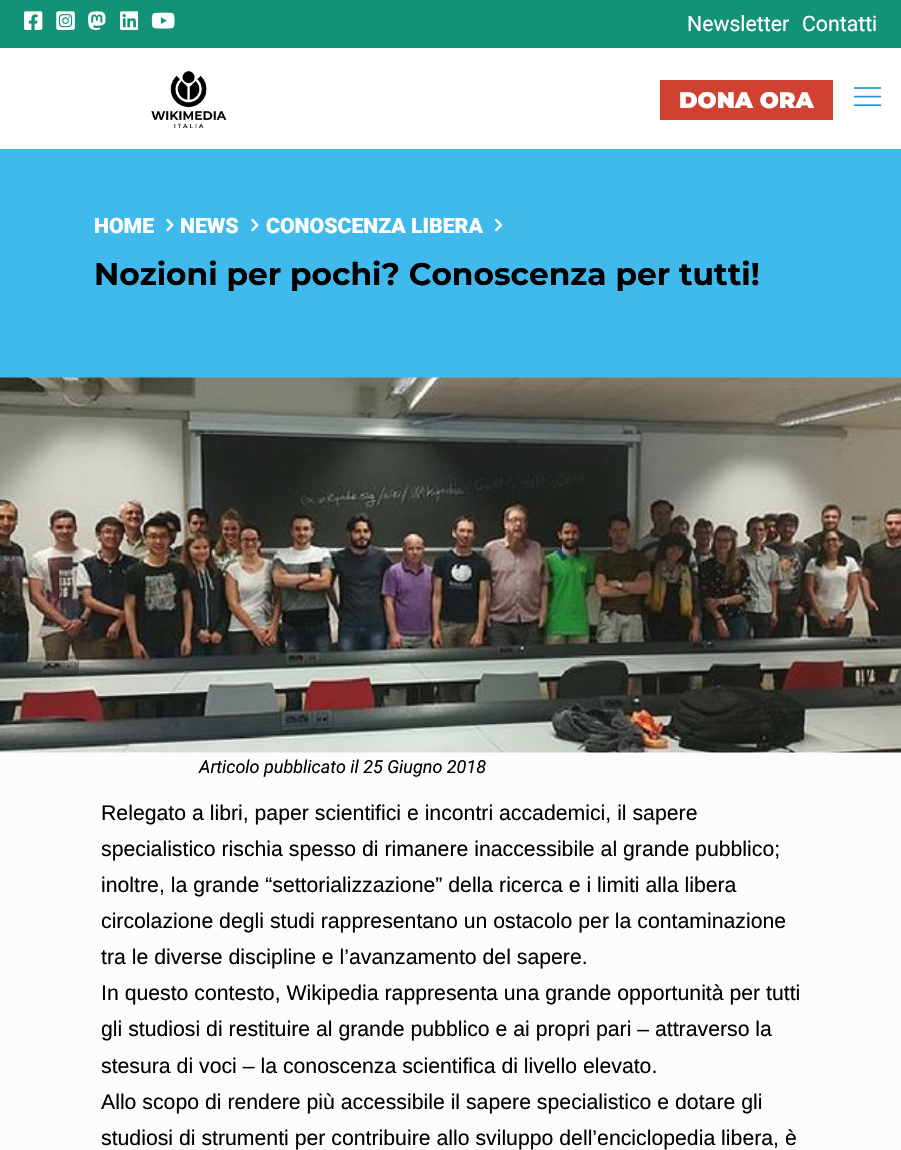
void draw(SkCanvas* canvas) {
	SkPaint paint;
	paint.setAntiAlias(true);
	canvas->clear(0xfffcfcfc);
	paint.setColor(0xff129378);
	canvas->drawRect(SkRect::MakeXYWH(0, 0, 901, 48), paint);
	canvas->drawImageRect(SkImages::DeferredFromEncodedData(SkData::MakeFromFileName("img1.png")), SkRect::MakeXYWH(24, 11, 19, 19), SkSamplingOptions());
	canvas->drawImageRect(SkImages::DeferredFromEncodedData(SkData::MakeFromFileName("img2.png")), SkRect::MakeXYWH(56, 11, 19, 19), SkSamplingOptions());
	canvas->drawImageRect(SkImages::DeferredFromEncodedData(SkData::MakeFromFileName("img3.png")), SkRect::MakeXYWH(88, 11, 18, 19), SkSamplingOptions());
	canvas->drawImageRect(SkImages::DeferredFromEncodedData(SkData::MakeFromFileName("img4.png")), SkRect::MakeXYWH(120, 11, 18, 19), SkSamplingOptions());
	canvas->drawImageRect(SkImages::DeferredFromEncodedData(SkData::MakeFromFileName("img5.png")), SkRect::MakeXYWH(151, 12, 24, 17), SkSamplingOptions());
	SkFont f1(fontMgr->matchFamilyStyle("Roboto", SkFontStyle::Normal()), 21.25);
	f1.setSubpixel(true);
	paint.setColor(0xffffffff);
	canvas->drawString("Newsletter", 687, 31, f1, paint);
	canvas->drawString("Contatti", 802, 31, f1, paint);
	canvas->drawRect(SkRect::MakeXYWH(0, 48, 901, 101), paint);
	canvas->drawImageRect(SkImages::DeferredFromEncodedData(SkData::MakeFromFileName("img6.png")), SkRect::MakeXYWH(151, 71, 76, 57), SkSamplingOptions());
	paint.setColor(0xffcf4130);
	canvas->drawRect(SkRect::MakeXYWH(660, 80, 173, 40), paint);
	SkFont f2(fontMgr->matchFamilyStyle("Montserrat", SkFontStyle(900, SkFontStyle::kNormal_Width, SkFontStyle::kUpright_Slant)), 22.5);
	f2.setSubpixel(true);
	paint.setColor(0xffffffff);
	canvas->drawString("DONA ORA", 679, 108, f2, paint);
	canvas->drawImageRect(SkImages::DeferredFromEncodedData(SkData::MakeFromFileName("img7.png")), SkRect::MakeXYWH(853, 87, 29, 20), SkSamplingOptions());
	paint.setColor(0xff40baec);
	canvas->drawRect(SkRect::MakeXYWH(0, 149, 901, 229), paint);
	SkFont f3(fontMgr->matchFamilyStyle("Roboto", SkFontStyle(900, SkFontStyle::kNormal_Width, SkFontStyle::kUpright_Slant)), 21.25);
	f3.setSubpixel(true);
	paint.setColor(0xffffffff);
	canvas->drawString("HOME", 94, 233, f3, paint);
	canvas->drawImageRect(SkImages::DeferredFromEncodedData(SkData::MakeFromFileName("img8.png")), SkRect::MakeXYWH(166, 218, 8, 14), SkSamplingOptions());
	canvas->drawString("NEWS", 180, 233, f3, paint);
	canvas->drawImageRect(SkImages::DeferredFromEncodedData(SkData::MakeFromFileName("img8.png")), SkRect::MakeXYWH(251, 218, 8, 14), SkSamplingOptions());
	canvas->drawString("CONOSCENZA LIBERA", 266, 233, f3, paint);
	canvas->drawImageRect(SkImages::DeferredFromEncodedData(SkData::MakeFromFileName("img9.png")), SkRect::MakeXYWH(495, 218, 8, 14), SkSamplingOptions());
	SkFont f4(fontMgr->matchFamilyStyle("Montserrat", SkFontStyle::Bold()), 31.25);
	f4.setSubpixel(true);
	paint.setColor(0xff000000);
	canvas->drawString("Nozioni per pochi? Conoscenza per tutti!", 94, 285, f4, paint);
	canvas->drawImageRect(SkImages::DeferredFromEncodedData(SkData::MakeFromFileName("img10.png")), SkRect::MakeXYWH(0, 377, 901, 376), SkSamplingOptions());
	SkFont f5(fontMgr->matchFamilyStyle("Roboto", SkFontStyle::Italic()), 18);
	f5.setSubpixel(true);
	canvas->drawString("Articolo pubblicato il 25 Giugno 2018", 199, 773, f5, paint);
	SkFont f6(fontMgr->matchFamilyStyle("Liberation Sans", SkFontStyle::Normal()), 21.25);
	f6.setSubpixel(true);
	canvas->drawString("Relegato a libri, paper scientifici e incontri accademici, il sapere", 101, 820, f6, paint);
	canvas->drawString("specialistico rischia spesso di rimanere inaccessibile al grande pubblico;", 101, 856, f6, paint);
	canvas->drawString("inoltre, la grande “settorializzazione” della ricerca e i limiti alla libera", 101, 892, f6, paint);
	canvas->drawString("circolazione degli studi rappresentano un ostacolo per la contaminazione", 101, 928, f6, paint);
	canvas->drawString("tra le diverse discipline e l’avanzamento del sapere.", 101, 964, f6, paint);
	canvas->drawString("In questo contesto, Wikipedia rappresenta una grande opportunità per tutti", 101, 1000, f6, paint);
	canvas->drawString("gli studiosi di restituire al grande pubblico e ai propri pari – attraverso la", 101, 1036, f6, paint);
	canvas->drawString("stesura di voci – la conoscenza scientifica di livello elevato.", 101, 1073, f6, paint);
	canvas->drawString("Allo scopo di rendere più accessibile il sapere specialistico e dotare gli", 101, 1109, f6, paint);
	canvas->drawString("studiosi di strumenti per contribuire allo sviluppo dell’enciclopedia libera, è", 101, 1145, f6, paint);
}
